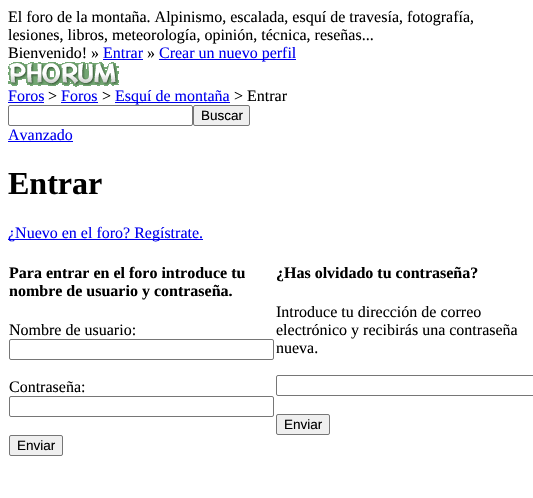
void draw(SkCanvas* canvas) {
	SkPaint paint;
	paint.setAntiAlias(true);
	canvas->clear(0xffffffff);
	SkFont f1(fontMgr->matchFamilyStyle("Liberation Serif", SkFontStyle::Normal()), 16);
	f1.setSubpixel(true);
	paint.setColor(0xff000000);
	canvas->drawString("El foro de la montaña. Alpinismo, escalada, esquí de travesía, fotografía,", 8, 22, f1, paint);
	canvas->drawString("lesiones, libros, meteorología, opinión, técnica, reseñas...", 8, 40, f1, paint);
	canvas->drawString("Bienvenido! »", 8, 58, f1, paint);
	paint.setColor(0xff0000ee);
	canvas->drawString("Entrar", 103, 58, f1, paint);
	canvas->drawRect(SkRect::MakeXYWH(103, 59, 40, 1), paint);
	paint.setColor(0xff000000);
	canvas->drawString("»", 147, 58, f1, paint);
	paint.setColor(0xff0000ee);
	canvas->drawRect(SkRect::MakeXYWH(159, 59, 137, 1), paint);
	canvas->drawString("Crear un nuevo perfil", 159, 58, f1, paint);
	canvas->drawImageRect(SkImages::DeferredFromEncodedData(SkData::MakeFromFileName("img1.png")), SkRect::MakeXYWH(8, 62, 111, 25), SkSamplingOptions());
	canvas->drawString("Foros", 8, 101, f1, paint);
	canvas->drawRect(SkRect::MakeXYWH(8, 102, 36, 1), paint);
	paint.setColor(0xff000000);
	canvas->drawString(">", 48, 101, f1, paint);
	paint.setColor(0xff0000ee);
	canvas->drawString("Foros", 61, 101, f1, paint);
	canvas->drawRect(SkRect::MakeXYWH(61, 102, 37, 1), paint);
	paint.setColor(0xff000000);
	canvas->drawString(">", 102, 101, f1, paint);
	paint.setColor(0xff0000ee);
	canvas->drawRect(SkRect::MakeXYWH(115, 102, 115, 1), paint);
	canvas->drawString("Esquí de montaña", 115, 101, f1, paint);
	paint.setColor(0xff000000);
	canvas->drawString("> Entrar", 234, 101, f1, paint);
	paint.setStroke(true);
	paint.setStrokeWidth(1);
	paint.setColor(0xff767676);
	canvas->drawRoundRect(SkRect::MakeXYWH(8.5, 105.5, 184, 20), 1.5, 1.5, paint);
	paint.setStroke(false);
	paint.setColor(0xffefefef);
	canvas->drawRoundRect(SkRect::MakeXYWH(193.5, 105.5, 56, 20), 1.5, 1.5, paint);
	paint.setStroke(true);
	paint.setColor(0xff767676);
	canvas->drawRoundRect(SkRect::MakeXYWH(193.5, 105.5, 56, 20), 1.5, 1.5, paint);
	SkFont f2(fontMgr->matchFamilyStyle("Liberation Sans", SkFontStyle::Normal()), 13.5);
	f2.setSubpixel(true);
	paint.setStroke(false);
	paint.setColor(0xff000000);
	canvas->drawString("Buscar", 201, 120, f2, paint);
	paint.setColor(0xff0000ee);
	canvas->drawString("Avanzado", 8, 140, f1, paint);
	canvas->drawRect(SkRect::MakeXYWH(8, 141, 65, 1), paint);
	SkFont f3(fontMgr->matchFamilyStyle("Liberation Serif", SkFontStyle::Bold()), 32);
	f3.setSubpixel(true);
	paint.setColor(0xff000000);
	canvas->drawString("Entrar", 8, 194, f3, paint);
	paint.setColor(0xff0000ee);
	canvas->drawRect(SkRect::MakeXYWH(8, 239, 195, 1), paint);
	canvas->drawString("¿Nuevo en el foro? Regístrate.", 8, 238, f1, paint);
	SkFont f4(fontMgr->matchFamilyStyle("Liberation Serif", SkFontStyle::Bold()), 16);
	f4.setSubpixel(true);
	paint.setColor(0xff000000);
	canvas->drawString("Para entrar en el foro introduce tu", 9, 278, f4, paint);
	canvas->drawString("nombre de usuario y contraseña.", 9, 296, f4, paint);
	canvas->drawString("Nombre de usuario:", 9, 335, f1, paint);
	paint.setStroke(true);
	paint.setColor(0xff767676);
	canvas->drawRoundRect(SkRect::MakeXYWH(9.5, 339.5, 264, 20), 1.5, 1.5, paint);
	paint.setStroke(false);
	paint.setColor(0xff000000);
	canvas->drawString("Contraseña:", 9, 392, f1, paint);
	paint.setStroke(true);
	paint.setColor(0xff767676);
	canvas->drawRoundRect(SkRect::MakeXYWH(9.5, 396.5, 264, 20), 1.5, 1.5, paint);
	paint.setStroke(false);
	paint.setColor(0xffefefef);
	canvas->drawRoundRect(SkRect::MakeXYWH(9.5, 435.5, 53, 20), 1.5, 1.5, paint);
	paint.setStroke(true);
	paint.setColor(0xff767676);
	canvas->drawRoundRect(SkRect::MakeXYWH(9.5, 435.5, 53, 20), 1.5, 1.5, paint);
	paint.setStroke(false);
	paint.setColor(0xff000000);
	canvas->drawString("Enviar", 17, 450, f2, paint);
	canvas->drawString("¿Has olvidado tu contraseña?", 276, 278, f4, paint);
	canvas->drawString("Introduce tu dirección de correo", 276, 317, f1, paint);
	canvas->drawString("electrónico y recibirás una contraseña", 276, 335, f1, paint);
	canvas->drawString("nueva.", 276, 353, f1, paint);
	paint.setStroke(true);
	paint.setColor(0xff767676);
	canvas->drawRoundRect(SkRect::MakeXYWH(276.5, 375.5, 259, 20), 1.5, 1.5, paint);
	paint.setStroke(false);
	paint.setColor(0xffefefef);
	canvas->drawRoundRect(SkRect::MakeXYWH(276.5, 414.5, 53, 20), 1.5, 1.5, paint);
	paint.setStroke(true);
	paint.setColor(0xff767676);
	canvas->drawRoundRect(SkRect::MakeXYWH(276.5, 414.5, 53, 20), 1.5, 1.5, paint);
	paint.setStroke(false);
	paint.setColor(0xff000000);
	canvas->drawString("Enviar", 284, 429, f2, paint);
}
